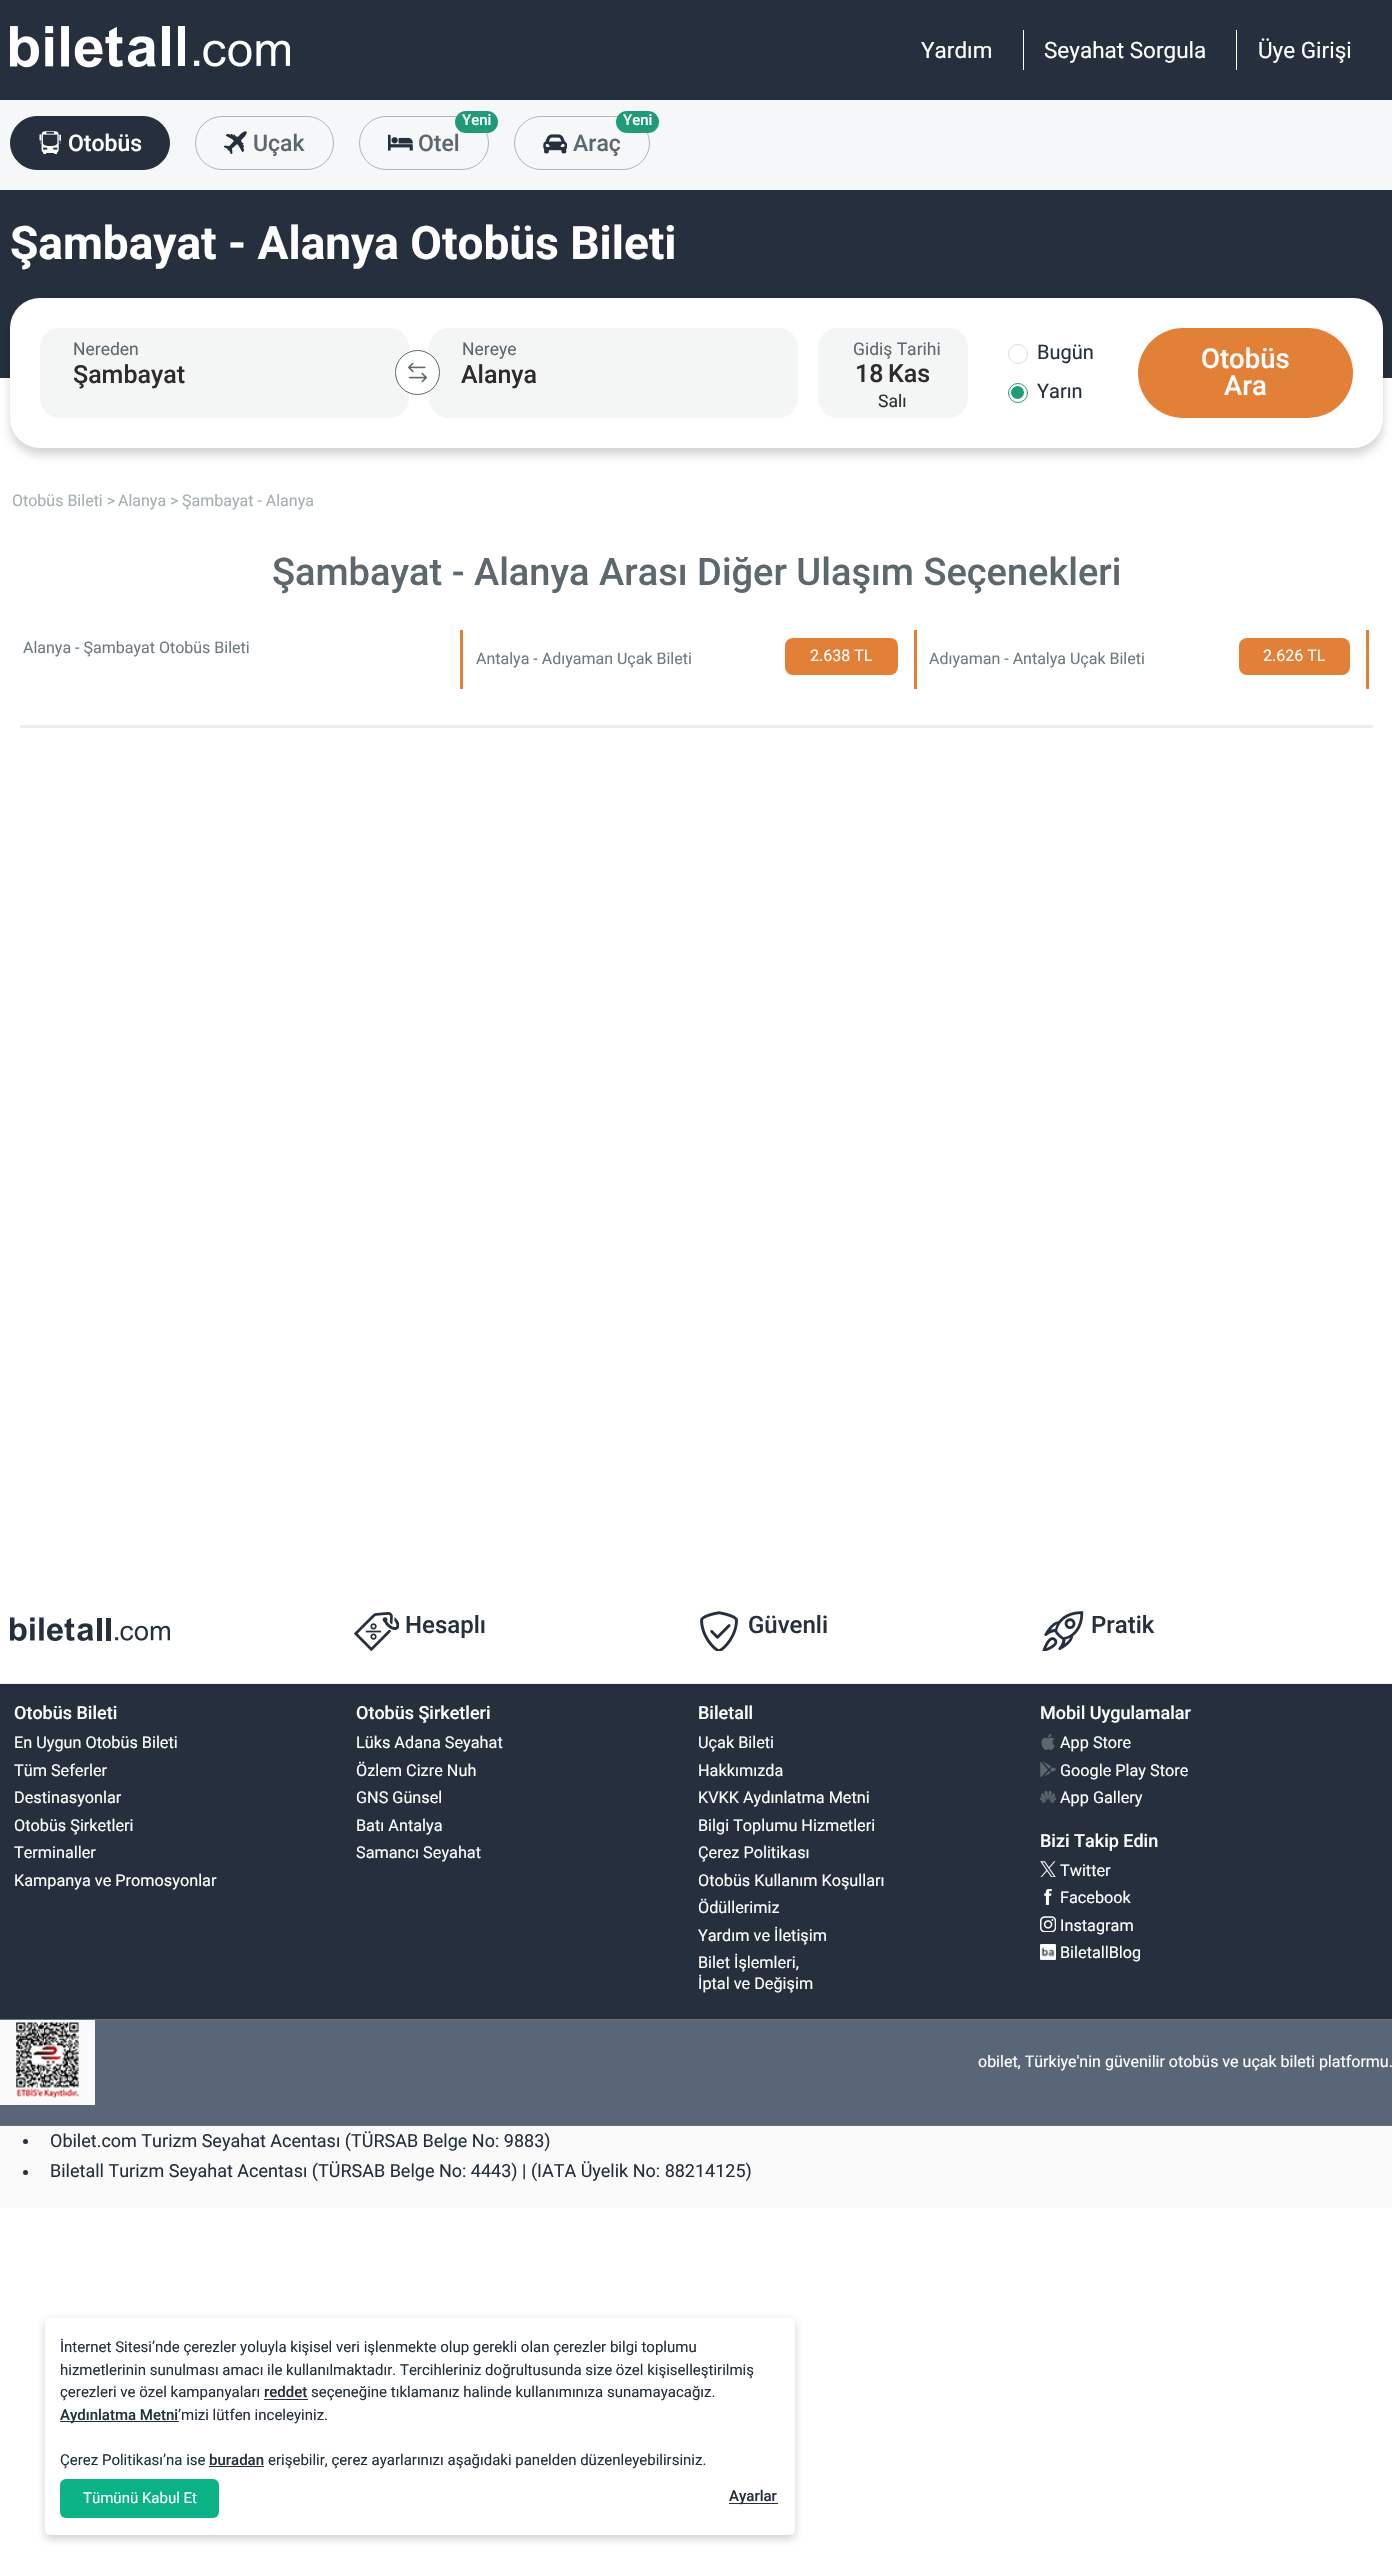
void draw(SkCanvas* canvas) {
	SkPaint paint;
	paint.setAntiAlias(true);
	canvas->clear(0xffffffff);
	paint.setColor(0xff252f3d);
	canvas->drawRect(SkRect::MakeXYWH(0, 0, 1392, 100), paint);
	canvas->drawImageRect(SkImages::DeferredFromEncodedData(SkData::MakeFromFileName("img1.png")), SkRect::MakeXYWH(10, 26, 280, 42), SkSamplingOptions());
	SkFont f1(fontMgr->matchFamilyStyle("Roboto", SkFontStyle::Normal()), 22.5);
	f1.setSubpixel(true);
	paint.setColor(0xffffffff);
	canvas->drawString("Yardım", 921, 58, f1, paint);
	canvas->drawRect(SkRect::MakeXYWH(1023, 30, 1, 40), paint);
	canvas->drawString("Seyahat Sorgula", 1044, 58, f1, paint);
	canvas->drawRect(SkRect::MakeXYWH(1236, 30, 1, 40), paint);
	canvas->drawString("Üye Girişi", 1258, 58, f1, paint);
	paint.setColor(0xfff6f7f8);
	canvas->drawRect(SkRect::MakeXYWH(0, 100, 1392, 90), paint);
	paint.setColor(0xff252f3d);
	canvas->drawRoundRect(SkRect::MakeXYWH(10.5, 116.5, 159, 53), 26.5, 26.5, paint);
	paint.setStroke(true);
	paint.setStrokeWidth(1);
	canvas->drawRoundRect(SkRect::MakeXYWH(10.5, 116.5, 159, 53), 26.5, 26.5, paint);
	canvas->drawImageRect(SkImages::DeferredFromEncodedData(SkData::MakeFromFileName("img2.png")), SkRect::MakeXYWH(39, 131, 22, 23), SkSamplingOptions());
	SkFont f2(fontMgr->matchFamilyStyle("Roboto", SkFontStyle(500, SkFontStyle::kNormal_Width, SkFontStyle::kUpright_Slant)), 23);
	f2.setSubpixel(true);
	paint.setStroke(false);
	paint.setColor(0xffffffff);
	canvas->drawString("Otobüs", 68, 151, f2, paint);
	paint.setStroke(true);
	paint.setColor(0xffb3b3b2);
	canvas->drawRoundRect(SkRect::MakeXYWH(195.5, 116.5, 138, 53), 26.5, 26.5, paint);
	canvas->drawImageRect(SkImages::DeferredFromEncodedData(SkData::MakeFromFileName("img3.png")), SkRect::MakeXYWH(224, 131, 23, 23), SkSamplingOptions());
	paint.setStroke(false);
	paint.setColor(0xff5d686e);
	canvas->drawString("Uçak", 253, 151, f2, paint);
	paint.setStroke(true);
	paint.setColor(0xffb3b3b2);
	canvas->drawRoundRect(SkRect::MakeXYWH(359.5, 116.5, 129, 53), 26.5, 26.5, paint);
	paint.setStroke(false);
	paint.setColor(0xff1f9b78);
	canvas->drawRoundRect(SkRect::MakeXYWH(455, 111, 43, 22), 11, 11, paint);
	SkFont f3(fontMgr->matchFamilyStyle("Roboto", SkFontStyle(500, SkFontStyle::kNormal_Width, SkFontStyle::kUpright_Slant)), 15);
	f3.setSubpixel(true);
	paint.setColor(0xffffffff);
	canvas->drawString("Yeni", 462, 125, f3, paint);
	canvas->drawImageRect(SkImages::DeferredFromEncodedData(SkData::MakeFromFileName("img4.png")), SkRect::MakeXYWH(388, 134, 25, 17), SkSamplingOptions());
	paint.setColor(0xff5d686e);
	canvas->drawString("Otel", 418, 151, f2, paint);
	paint.setStroke(true);
	paint.setColor(0xffb3b3b2);
	canvas->drawRoundRect(SkRect::MakeXYWH(514.5, 116.5, 135, 53), 26.5, 26.5, paint);
	paint.setStroke(false);
	paint.setColor(0xff1f9b78);
	canvas->drawRoundRect(SkRect::MakeXYWH(616, 111, 43, 22), 11, 11, paint);
	paint.setColor(0xffffffff);
	canvas->drawString("Yeni", 623, 125, f3, paint);
	canvas->drawImageRect(SkImages::DeferredFromEncodedData(SkData::MakeFromFileName("img5.png")), SkRect::MakeXYWH(543, 134, 24, 20), SkSamplingOptions());
	paint.setColor(0xff5d686e);
	canvas->drawString("Araç", 573, 151, f2, paint);
	paint.setColor(0xff252f3d);
	canvas->drawRect(SkRect::MakeXYWH(0, 190, 1392, 188), paint);
	SkFont f4(fontMgr->matchFamilyStyle("Roboto", SkFontStyle::Bold()), 46);
	f4.setSubpixel(true);
	paint.setColor(0xffffffff);
	canvas->drawString("Şambayat - Alanya Otobüs Bileti", 10, 259, f4, paint);
	paint.setColor(0x29000000);
	paint.setMaskFilter(SkMaskFilter::MakeBlur(kNormal_SkBlurStyle, 4));
	canvas->drawRoundRect(SkRect::MakeXYWH(10, 305, 1373, 150), 30, 30, paint);
	paint.setMaskFilter(nullptr);
	paint.setColor(0xffffffff);
	canvas->drawRoundRect(SkRect::MakeXYWH(10, 298, 1373, 150), 30, 30, paint);
	paint.setColor(0xfff4f5f5);
	canvas->drawRoundRect(SkRect::MakeXYWH(40, 328, 369, 90), 20, 20, paint);
	SkFont f5(fontMgr->matchFamilyStyle("Roboto", SkFontStyle::Normal()), 17.5);
	f5.setSubpixel(true);
	paint.setColor(0xff5d686e);
	canvas->drawString("Nereden", 73, 355, f5, paint);
	SkFont f6(fontMgr->matchFamilyStyle("Roboto", SkFontStyle(500, SkFontStyle::kNormal_Width, SkFontStyle::kUpright_Slant)), 25);
	f6.setSubpixel(true);
	paint.setColor(0xff2c2c2c);
	canvas->drawString("Şambayat", 73, 383, f6, paint);
	paint.setColor(0xfff4f5f5);
	canvas->drawRoundRect(SkRect::MakeXYWH(429, 328, 369, 90), 20, 20, paint);
	paint.setColor(0xffffffff);
	canvas->drawCircle(417.5, 372.5, 22, paint);
	paint.setStroke(true);
	paint.setColor(0xff5d686e);
	canvas->drawCircle(417.5, 372.5, 22, paint);
	canvas->drawImageRect(SkImages::DeferredFromEncodedData(SkData::MakeFromFileName("img6.png")), SkRect::MakeXYWH(408, 363, 19, 20), SkSamplingOptions());
	paint.setStroke(false);
	canvas->drawString("Nereye", 462, 355, f5, paint);
	paint.setColor(0xff2c2c2c);
	canvas->drawString("Alanya", 461, 383, f6, paint);
	paint.setColor(0xfff4f5f5);
	canvas->drawRoundRect(SkRect::MakeXYWH(818, 328, 150, 90), 20, 20, paint);
	paint.setColor(0xff5d686e);
	canvas->drawString("Gidiş Tarihi", 853, 355, f5, paint);
	paint.setColor(0xff2c2c2c);
	canvas->drawString("18", 855, 382, f6, paint);
	canvas->drawString("Kas", 888, 382, f6, paint);
	canvas->drawString("Salı", 878, 407, f5, paint);
	paint.setStroke(true);
	paint.setColor(0xffdddddd);
	canvas->drawCircle(1018, 354, 9.5, paint);
	SkFont f7(fontMgr->matchFamilyStyle("Roboto", SkFontStyle::Normal()), 20);
	f7.setSubpixel(true);
	paint.setStroke(false);
	paint.setColor(0xff252f3d);
	canvas->drawString("Bugün", 1037, 359, f7, paint);
	paint.setStroke(true);
	paint.setColor(0xff1f9b78);
	canvas->drawCircle(1018, 393, 9.5, paint);
	paint.setStroke(false);
	canvas->drawCircle(1017.5, 392.5, 6.5, paint);
	paint.setColor(0xff252f3d);
	canvas->drawString("Yarın", 1037, 398, f7, paint);
	paint.setColor(0xffe38037);
	canvas->drawRoundRect(SkRect::MakeXYWH(1138, 328, 215, 90), 45, 45, paint);
	SkFont f8(fontMgr->matchFamilyStyle("Roboto", SkFontStyle(500, SkFontStyle::kNormal_Width, SkFontStyle::kUpright_Slant)), 27.5);
	f8.setSubpixel(true);
	paint.setColor(0xffffffff);
	canvas->drawString("Otobüs", 1201, 368, f8, paint);
	canvas->drawString("Ara", 1224, 395, f8, paint);
	SkFont f9(fontMgr->matchFamilyStyle("Roboto", SkFontStyle::Normal()), 16);
	f9.setSubpixel(true);
	paint.setColor(0xffa4afb2);
	canvas->drawString("Otobüs Bileti >", 12, 506, f9, paint);
	canvas->drawString("Alanya >", 118, 506, f9, paint);
	canvas->drawString("Şambayat - Alanya", 182, 506, f9, paint);
	SkFont f10(fontMgr->matchFamilyStyle("Roboto", SkFontStyle(500, SkFontStyle::kNormal_Width, SkFontStyle::kUpright_Slant)), 38);
	f10.setSubpixel(true);
	paint.setColor(0xff5d686e);
	canvas->drawString("Şambayat - Alanya Arası Diğer Ulaşım Seçenekleri", 272, 585, f10, paint);
	paint.setColor(0xffe38037);
	canvas->drawRect(SkRect::MakeXYWH(460, 630, 3, 59), paint);
	paint.setColor(0xff6e7a81);
	canvas->drawString("Alanya - Şambayat Otobüs Bileti", 23, 653, f9, paint);
	paint.setColor(0xffe38037);
	canvas->drawRect(SkRect::MakeXYWH(914, 630, 3, 59), paint);
	paint.setColor(0xff6e7a81);
	canvas->drawString("Antalya - Adıyaman Uçak Bileti", 476, 664, f9, paint);
	paint.setColor(0xffe38037);
	canvas->drawRoundRect(SkRect::MakeXYWH(785, 638, 113, 37), 8, 8, paint);
	paint.setColor(0xffffffff);
	canvas->drawString("2.638 TL", 810, 661, f9, paint);
	paint.setColor(0xffe38037);
	canvas->drawRect(SkRect::MakeXYWH(1366, 630, 3, 59), paint);
	paint.setColor(0xff6e7a81);
	canvas->drawString("Adıyaman - Antalya Uçak Bileti", 929, 664, f9, paint);
	paint.setColor(0xffe38037);
	canvas->drawRoundRect(SkRect::MakeXYWH(1239, 638, 111, 37), 8, 8, paint);
	paint.setColor(0xffffffff);
	canvas->drawString("2.626 TL", 1263, 661, f9, paint);
	paint.setColor(0xffededed);
	canvas->drawRect(SkRect::MakeXYWH(20, 725, 1353, 3), paint);
	canvas->drawRect(SkRect::MakeXYWH(0, 1683, 1392, 1), paint);
	canvas->drawImageRect(SkImages::DeferredFromEncodedData(SkData::MakeFromFileName("img7.png")), SkRect::MakeXYWH(10, 1617, 160, 24), SkSamplingOptions());
	canvas->drawImageRect(SkImages::DeferredFromEncodedData(SkData::MakeFromFileName("img8.png")), SkRect::MakeXYWH(354, 1612, 45, 39), SkSamplingOptions());
	SkFont f11(fontMgr->matchFamilyStyle("Roboto", SkFontStyle(500, SkFontStyle::kNormal_Width, SkFontStyle::kUpright_Slant)), 24);
	f11.setSubpixel(true);
	paint.setColor(0xff252f3d);
	canvas->drawString("Hesaplı", 405, 1633, f11, paint);
	canvas->drawImageRect(SkImages::DeferredFromEncodedData(SkData::MakeFromFileName("img9.png")), SkRect::MakeXYWH(700, 1611, 38, 40), SkSamplingOptions());
	canvas->drawString("Güvenli", 748, 1633, f11, paint);
	canvas->drawImageRect(SkImages::DeferredFromEncodedData(SkData::MakeFromFileName("img10.png")), SkRect::MakeXYWH(1042, 1611, 42, 40), SkSamplingOptions());
	canvas->drawString("Pratik", 1091, 1633, f11, paint);
	canvas->drawRect(SkRect::MakeXYWH(0, 1684, 1392, 335), paint);
	SkFont f12(fontMgr->matchFamilyStyle("Roboto", SkFontStyle(500, SkFontStyle::kNormal_Width, SkFontStyle::kUpright_Slant)), 18);
	f12.setSubpixel(true);
	paint.setColor(0xffffffff);
	canvas->drawString("Otobüs Bileti", 14, 1719, f12, paint);
	SkFont f13(fontMgr->matchFamilyStyle("Roboto", SkFontStyle::Normal()), 16.25);
	f13.setSubpixel(true);
	canvas->drawString("En Uygun Otobüs Bileti", 14, 1748, f13, paint);
	canvas->drawString("Tüm Seferler", 14, 1776, f13, paint);
	canvas->drawString("Destinasyonlar", 14, 1803, f13, paint);
	canvas->drawString("Otobüs Şirketleri", 14, 1831, f13, paint);
	canvas->drawString("Terminaller", 14, 1858, f13, paint);
	canvas->drawString("Kampanya ve Promosyonlar", 14, 1886, f13, paint);
	canvas->drawString("Otobüs Şirketleri", 356, 1719, f12, paint);
	canvas->drawString("Lüks Adana Seyahat", 356, 1748, f13, paint);
	canvas->drawString("Özlem Cizre Nuh", 356, 1776, f13, paint);
	canvas->drawString("GNS Günsel", 356, 1803, f13, paint);
	canvas->drawString("Batı Antalya", 356, 1831, f13, paint);
	canvas->drawString("Samancı Seyahat", 356, 1858, f13, paint);
	canvas->drawString("Biletall", 698, 1719, f12, paint);
	canvas->drawString("Uçak Bileti", 698, 1748, f13, paint);
	canvas->drawString("Hakkımızda", 698, 1776, f13, paint);
	canvas->drawString("KVKK Aydınlatma Metni", 698, 1803, f13, paint);
	canvas->drawString("Bilgi Toplumu Hizmetleri", 698, 1831, f13, paint);
	canvas->drawString("Çerez Politikası", 698, 1858, f13, paint);
	canvas->drawString("Otobüs Kullanım Koşulları", 698, 1886, f13, paint);
	canvas->drawString("Ödüllerimiz", 698, 1913, f13, paint);
	canvas->drawString("Yardım ve İletişim", 698, 1941, f13, paint);
	canvas->drawString("Bilet İşlemleri,", 698, 1968, f13, paint);
	canvas->drawString("İptal ve Değişim", 698, 1989, f13, paint);
	canvas->drawString("Mobil Uygulamalar", 1040, 1719, f12, paint);
	canvas->drawImageRect(SkImages::DeferredFromEncodedData(SkData::MakeFromFileName("img11.png")), SkRect::MakeXYWH(1041, 1734, 14, 16), SkSamplingOptions());
	canvas->drawString("App Store", 1060, 1748, f13, paint);
	canvas->drawImageRect(SkImages::DeferredFromEncodedData(SkData::MakeFromFileName("img12.png")), SkRect::MakeXYWH(1040, 1761, 16, 16), SkSamplingOptions());
	canvas->drawString("Google Play Store", 1060, 1776, f13, paint);
	canvas->drawImageRect(SkImages::DeferredFromEncodedData(SkData::MakeFromFileName("img13.png")), SkRect::MakeXYWH(1040, 1790, 16, 13), SkSamplingOptions());
	canvas->drawString("App Gallery", 1060, 1803, f13, paint);
	canvas->drawString("Bizi Takip Edin", 1040, 1847, f12, paint);
	canvas->drawImageRect(SkImages::DeferredFromEncodedData(SkData::MakeFromFileName("img14.png")), SkRect::MakeXYWH(1040, 1861, 16, 16), SkSamplingOptions());
	canvas->drawString("Twitter", 1060, 1876, f13, paint);
	canvas->drawImageRect(SkImages::DeferredFromEncodedData(SkData::MakeFromFileName("img15.png")), SkRect::MakeXYWH(1044, 1889, 8, 16), SkSamplingOptions());
	canvas->drawString("Facebook", 1060, 1903, f13, paint);
	canvas->drawImageRect(SkImages::DeferredFromEncodedData(SkData::MakeFromFileName("img16.png")), SkRect::MakeXYWH(1040, 1916, 16, 16), SkSamplingOptions());
	canvas->drawString("Instagram", 1060, 1931, f13, paint);
	canvas->drawImageRect(SkImages::DeferredFromEncodedData(SkData::MakeFromFileName("img17.png")), SkRect::MakeXYWH(1040, 1944, 16, 16), SkSamplingOptions());
	canvas->drawString("BiletallBlog", 1060, 1958, f13, paint);
	paint.setColor(0xff586678);
	canvas->drawRect(SkRect::MakeXYWH(0, 2020, 1392, 105), paint);
	paint.setColor(0xff707070);
	canvas->drawRect(SkRect::MakeXYWH(0, 2019, 1392, 1), paint);
	canvas->drawRect(SkRect::MakeXYWH(0, 2125, 1392, 1), paint);
	paint.setColor(0xfffafafa);
	canvas->drawRect(SkRect::MakeXYWH(0, 2020, 95, 85), paint);
	canvas->drawImageRect(SkImages::DeferredFromEncodedData(SkData::MakeFromFileName("img18.png")), SkRect::MakeXYWH(16, 2022, 63, 76), SkSamplingOptions());
	paint.setColor(0xffffffff);
	canvas->drawString("obilet, Türkiye'nin güvenilir otobüs ve uçak bileti platformu.", 978, 2067, f9, paint);
	paint.setColor(0xfffafafa);
	canvas->drawRect(SkRect::MakeXYWH(0, 2126, 1392, 82), paint);
	paint.setColor(0xff252f3d);
	canvas->drawCircle(25.5, 2141.5, 2.5, paint);
	SkFont f14(fontMgr->matchFamilyStyle("Roboto", SkFontStyle::Normal()), 18);
	f14.setSubpixel(true);
	canvas->drawString("Obilet.com Turizm Seyahat Acentası (TÜRSAB Belge No: 9883)", 50, 2147, f14, paint);
	canvas->drawCircle(25.5, 2172.5, 2.5, paint);
	canvas->drawString("Biletall Turizm Seyahat Acentası (TÜRSAB Belge No: 4443) | (IATA Üyelik No: 88214125)", 50, 2177, f14, paint);
	paint.setColor(0x403c4448);
	paint.setMaskFilter(SkMaskFilter::MakeBlur(kNormal_SkBlurStyle, 4));
	canvas->drawRoundRect(SkRect::MakeXYWH(45, 2321, 750, 218), 5, 5, paint);
	paint.setMaskFilter(nullptr);
	paint.setColor(0xffffffff);
	canvas->drawRoundRect(SkRect::MakeXYWH(45, 2318, 750, 217), 5, 5, paint);
	SkFont f15(fontMgr->matchFamilyStyle("Roboto", SkFontStyle::Normal()), 15);
	f15.setSubpixel(true);
	paint.setColor(0xff252f3d);
	canvas->drawString("İnternet Sitesi’nde çerezler yoluyla kişisel veri işlenmekte olup gerekli olan çerezler bilgi toplumu", 60, 2352, f15, paint);
	canvas->drawString("hizmetlerinin sunulması amacı ile kullanılmaktadır. Tercihleriniz doğrultusunda size özel kişiselleştirilmiş", 60, 2375, f15, paint);
	canvas->drawString("çerezleri ve özel kampanyaları", 60, 2397, f15, paint);
	canvas->drawString("reddet", 264, 2397, f3, paint);
	canvas->drawRect(SkRect::MakeXYWH(264, 2399, 44, 1), paint);
	canvas->drawString("seçeneğine tıklamanız halinde kullanımınıza sunamayacağız.", 311, 2397, f15, paint);
	canvas->drawRect(SkRect::MakeXYWH(60, 2421, 119, 1), paint);
	canvas->drawString("Aydınlatma Metni", 60, 2420, f3, paint);
	canvas->drawString("’mizi lütfen inceleyiniz.", 178, 2420, f15, paint);
	canvas->drawString("Çerez Politikası’na ise", 60, 2465, f15, paint);
	canvas->drawString("buradan", 209, 2465, f3, paint);
	canvas->drawRect(SkRect::MakeXYWH(209, 2466, 55, 1), paint);
	canvas->drawString("erişebilir, çerez ayarlarınızı aşağıdaki panelden düzenleyebilirsiniz.", 268, 2465, f15, paint);
	paint.setColor(0xff0ab285);
	canvas->drawRoundRect(SkRect::MakeXYWH(60, 2479, 159, 39), 6, 6, paint);
	paint.setColor(0xffffffff);
	canvas->drawString("Tümünü Kabul Et", 83, 2503, f15, paint);
	paint.setColor(0xff252f3d);
	canvas->drawRect(SkRect::MakeXYWH(729, 2503, 49, 1), paint);
	canvas->drawString("Ayarlar", 729, 2501, f3, paint);
}
